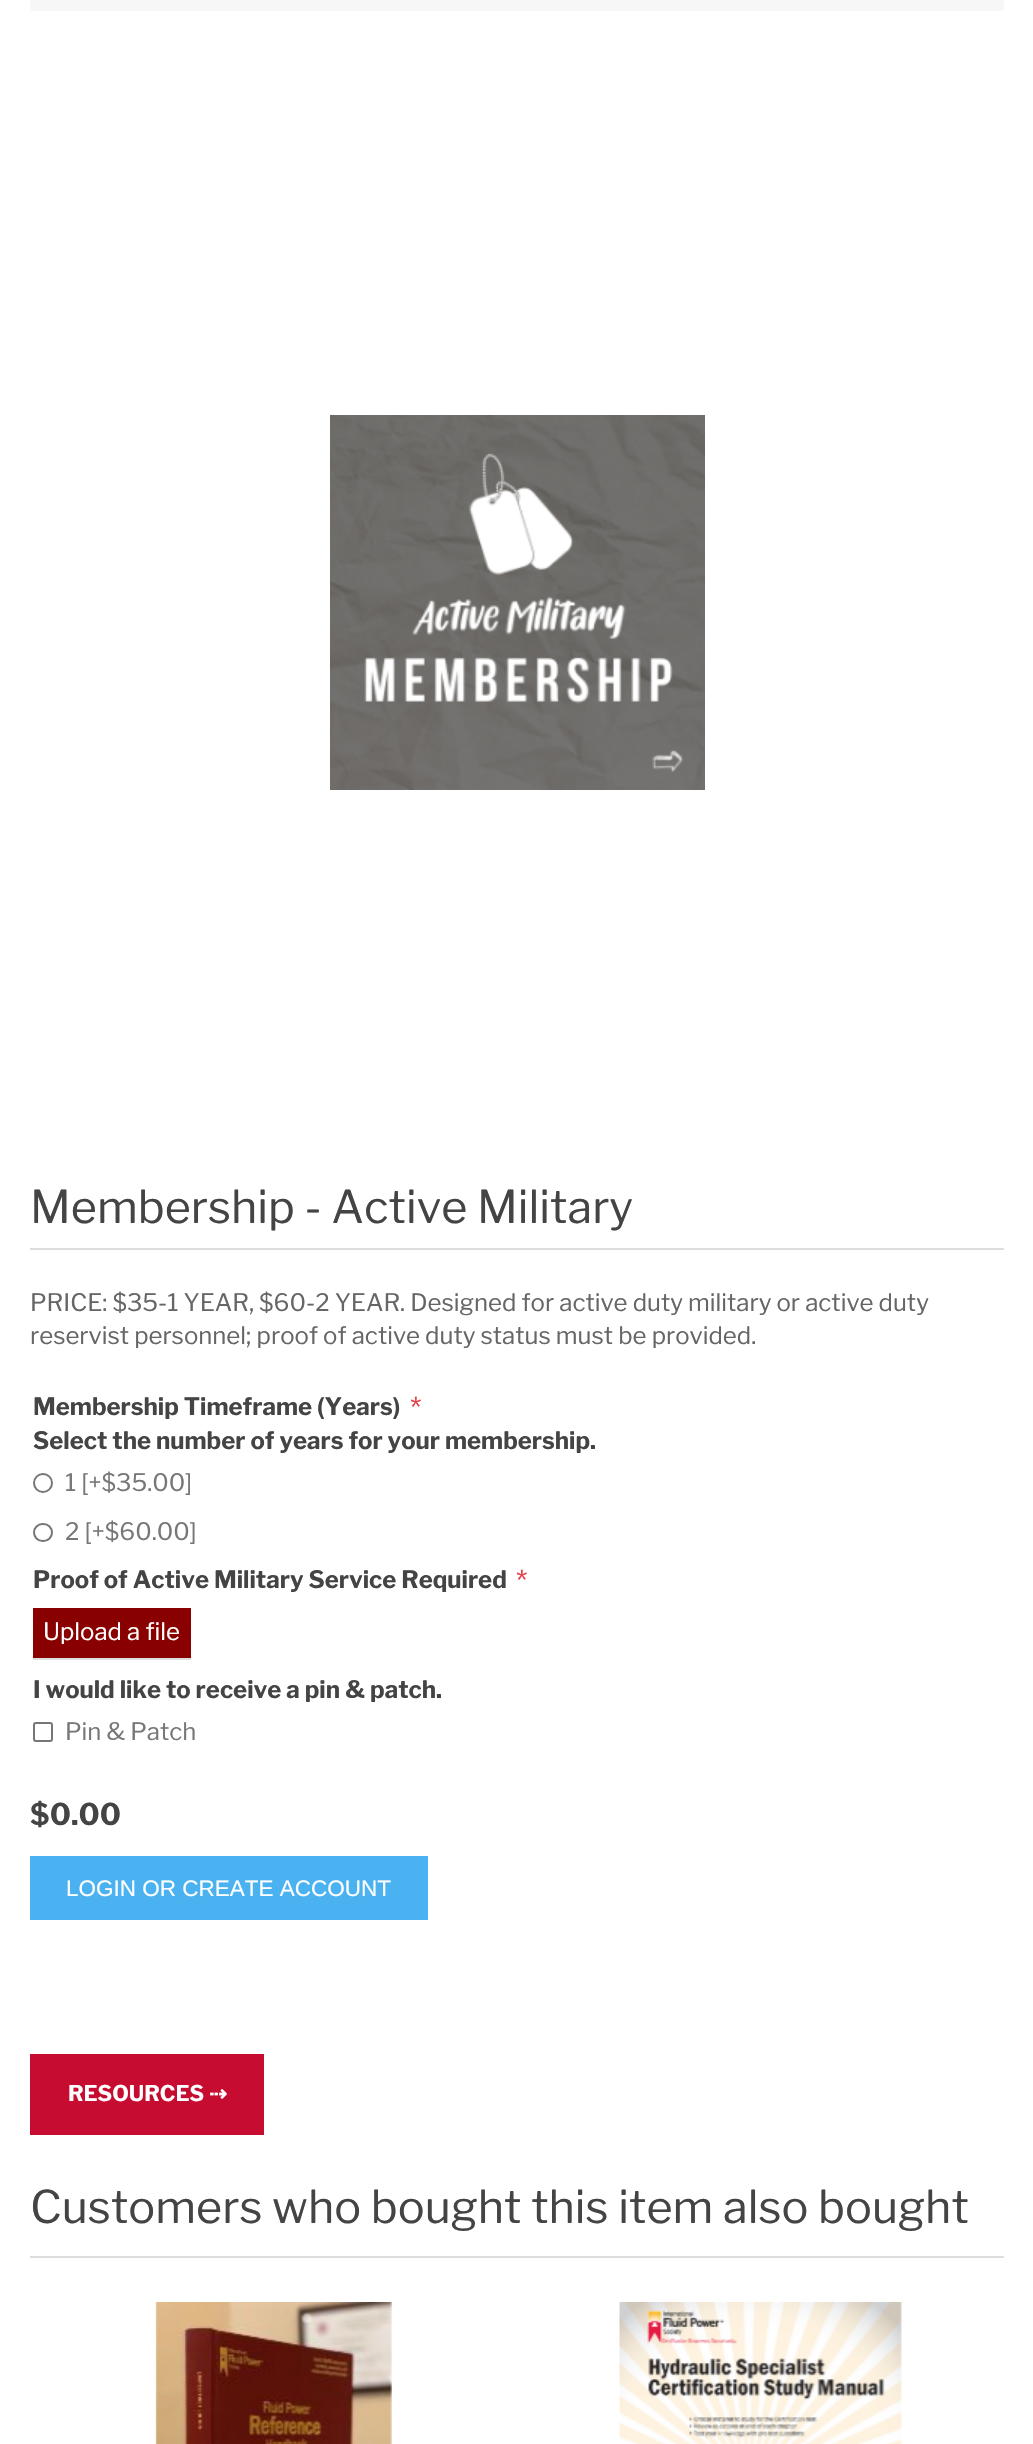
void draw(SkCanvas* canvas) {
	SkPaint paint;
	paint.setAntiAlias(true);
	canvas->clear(0xffffffff);
	paint.setColor(0xfff7f7f7);
	canvas->drawRect(SkRect::MakeXYWH(30, 0, 974, 11), paint);
	canvas->drawImageRect(SkImages::DeferredFromEncodedData(SkData::MakeFromFileName("img1.png")), SkRect::MakeXYWH(330, 415, 375, 375), SkSamplingOptions());
	paint.setColor(0xffdddddd);
	canvas->drawRect(SkRect::MakeXYWH(30, 1248, 974, 2), paint);
	SkFont f1(fontMgr->matchFamilyStyle("Libre Franklin", SkFontStyle::Normal()), 45);
	f1.setSubpixel(true);
	paint.setColor(0xff444444);
	canvas->drawString("Membership - Active Military", 30, 1223, f1, paint);
	SkFont f2(fontMgr->matchFamilyStyle("Libre Franklin", SkFontStyle::Normal()), 24);
	f2.setSubpixel(true);
	paint.setColor(0xff666666);
	canvas->drawString("PRICE: $35-1 YEAR, $60-2 YEAR. Designed for active duty military or active duty", 30, 1311, f2, paint);
	canvas->drawString("reservist personnel; proof of active duty status must be provided.", 30, 1344, f2, paint);
	SkFont f3(fontMgr->matchFamilyStyle("Libre Franklin", SkFontStyle::Bold()), 24);
	f3.setSubpixel(true);
	paint.setColor(0xff444444);
	canvas->drawString("Membership Timeframe (Years)", 33, 1415, f3, paint);
	SkFont f4(fontMgr->matchFamilyStyle("Libre Franklin", SkFontStyle::Normal()), 30);
	f4.setSubpixel(true);
	paint.setColor(0xffe4434b);
	canvas->drawString("*", 410, 1419, f4, paint);
	paint.setColor(0xff444444);
	canvas->drawString("Select the number of years for your membership.", 33, 1449, f3, paint);
	paint.setStroke(true);
	paint.setStrokeWidth(2);
	paint.setColor(0xff767676);
	canvas->drawCircle(43, 1483, 9, paint);
	paint.setStroke(false);
	paint.setColor(0xff777777);
	canvas->drawString("1 [+$35.00]", 65, 1491, f2, paint);
	paint.setStroke(true);
	paint.setColor(0xff767676);
	canvas->drawRoundRect(SkRect::MakeXYWH(34, 1524, 18, 17), 8.5, 8.5, paint);
	paint.setStroke(false);
	paint.setColor(0xff777777);
	canvas->drawString("2 [+$60.00]", 65, 1540, f2, paint);
	paint.setColor(0xff444444);
	canvas->drawString("Proof of Active Military Service Required", 33, 1588, f3, paint);
	paint.setColor(0xffe4434b);
	canvas->drawString("*", 516, 1592, f4, paint);
	paint.setColor(0xff880000);
	canvas->drawRect(SkRect::MakeXYWH(33, 1608, 158, 50), paint);
	paint.setColor(0xffdddddd);
	canvas->drawRect(SkRect::MakeXYWH(33, 1658, 158, 2), paint);
	paint.setColor(0xffffffff);
	canvas->drawString("Upload a file", 43, 1640, f2, paint);
	paint.setColor(0xff444444);
	canvas->drawString("I would like to receive a pin & patch.", 33, 1698, f3, paint);
	paint.setStroke(true);
	paint.setColor(0xff767676);
	canvas->drawRoundRect(SkRect::MakeXYWH(34, 1723, 18, 18), 2, 2, paint);
	paint.setStroke(false);
	paint.setColor(0xff777777);
	canvas->drawString("Pin & Patch", 65, 1740, f2, paint);
	SkFont f5(fontMgr->matchFamilyStyle("Libre Franklin", SkFontStyle::Bold()), 30);
	f5.setSubpixel(true);
	paint.setColor(0xff444444);
	canvas->drawString("$0.00", 30, 1825, f5, paint);
	paint.setColor(0xff4ab2f1);
	canvas->drawRect(SkRect::MakeXYWH(30, 1856, 398, 64), paint);
	SkFont f6(fontMgr->matchFamilyStyle("Liberation Sans", SkFontStyle::Normal()), 22.5);
	f6.setSubpixel(true);
	paint.setColor(0xffffffff);
	canvas->drawString("LOGIN OR CREATE ACCOUNT", 66, 1896, f6, paint);
	paint.setColor(0xffc60c30);
	canvas->drawRect(SkRect::MakeXYWH(30, 2054, 234, 81), paint);
	SkFont f7(fontMgr->matchFamilyStyle("Libre Franklin", SkFontStyle::Bold()), 21.5);
	f7.setSubpixel(true);
	paint.setColor(0xffffffff);
	canvas->drawString("RESOURCES", 68, 2101, f7, paint);
	SkFont f8(fontMgr->matchFamilyStyle("DejaVu Sans", SkFontStyle::Bold()), 21.5);
	f8.setSubpixel(true);
	canvas->drawString("⇢", 209, 2101, f8, paint);
	paint.setColor(0xffdddddd);
	canvas->drawRect(SkRect::MakeXYWH(30, 2256, 974, 2), paint);
	paint.setColor(0xff444444);
	canvas->drawString("Customers who bought this item also bought", 30, 2223, f1, paint);
	canvas->drawImageRect(SkImages::DeferredFromEncodedData(SkData::MakeFromFileName("img2.png")), SkRect::MakeXYWH(155, 2302, 237, 142), SkSamplingOptions());
	canvas->drawImageRect(SkImages::DeferredFromEncodedData(SkData::MakeFromFileName("img3.png")), SkRect::MakeXYWH(619, 2302, 283, 142), SkSamplingOptions());
}
